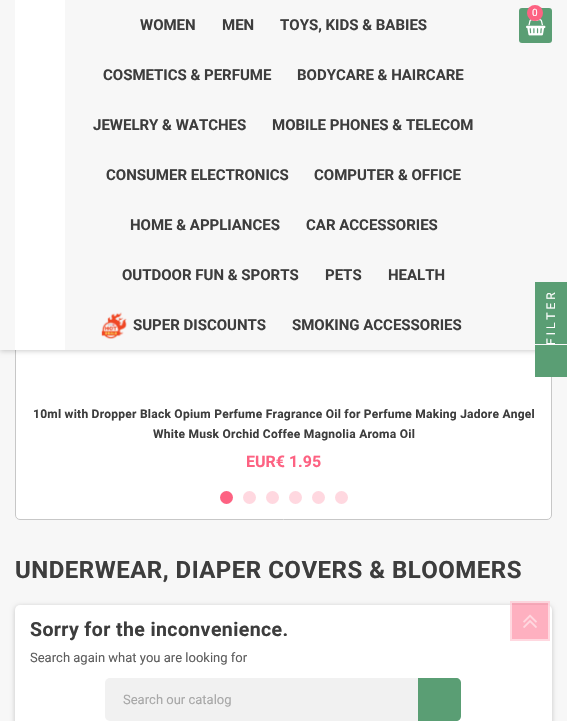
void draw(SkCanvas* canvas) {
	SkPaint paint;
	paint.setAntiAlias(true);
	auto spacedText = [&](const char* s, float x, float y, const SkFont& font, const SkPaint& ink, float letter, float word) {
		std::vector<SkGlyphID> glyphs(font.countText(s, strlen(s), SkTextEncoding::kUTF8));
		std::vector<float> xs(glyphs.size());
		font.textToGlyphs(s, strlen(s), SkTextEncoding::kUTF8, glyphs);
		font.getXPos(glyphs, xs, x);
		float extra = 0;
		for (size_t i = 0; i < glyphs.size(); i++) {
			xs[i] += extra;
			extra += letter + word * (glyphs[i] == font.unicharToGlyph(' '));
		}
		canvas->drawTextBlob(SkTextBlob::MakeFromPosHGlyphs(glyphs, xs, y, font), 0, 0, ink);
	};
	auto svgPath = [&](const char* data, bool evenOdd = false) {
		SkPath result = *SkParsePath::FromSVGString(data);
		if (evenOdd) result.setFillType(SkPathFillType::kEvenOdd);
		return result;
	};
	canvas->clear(0xfff7f7f7);
	paint.setColor(0xffffffff);
	canvas->drawRoundRect(SkRect::MakeXYWH(15.5, 133.5, 536, 386), 4.5, 4.5, paint);
	paint.setStroke(true);
	paint.setStrokeWidth(1);
	paint.setColor(0xffc7c7c7);
	canvas->drawRoundRect(SkRect::MakeXYWH(15.5, 133.5, 536, 386), 4.5, 4.5, paint);
	paint.setStroke(false);
	paint.setColor(0x33000000);
	paint.setMaskFilter(SkMaskFilter::MakeBlur(kNormal_SkBlurStyle, 2.5));
	canvas->drawRect(SkRect::MakeXYWH(0, 1, 567, 350), paint);
	paint.setMaskFilter(nullptr);
	paint.setColor(0xfff7f7f7);
	canvas->drawRect(SkRect::MakeXYWH(0, 0, 567, 350), paint);
	paint.setColor(0xffffffff);
	canvas->drawRect(SkRect::MakeXYWH(15, 0, 50, 350), paint);
	paint.setColor(0xff5a9e74);
	canvas->drawRoundRect(SkRect::MakeXYWH(519, 8, 33, 35), 3, 3, paint);
	canvas->drawImageRect(SkImages::DeferredFromEncodedData(SkData::MakeFromFileName("img1.png")), SkRect::MakeXYWH(526, 19, 20, 17), SkSamplingOptions());
	paint.setColor(0xfffd6282);
	canvas->drawCircle(535, 13, 8, paint);
	SkFont f1(fontMgr->matchFamilyStyle("Roboto", SkFontStyle::Normal()), 10);
	f1.setSubpixel(true);
	paint.setColor(0xffffffff);
	canvas->drawString("0", 532, 16, f1, paint);
	SkFont f2(fontMgr->matchFamilyStyle("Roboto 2", SkFontStyle::Bold()), 15);
	f2.setSubpixel(true);
	paint.setColor(0xff3d3d3d);
	canvas->drawString("WOMEN", 140, 30, f2, paint);
	canvas->drawString("MEN", 222, 30, f2, paint);
	canvas->drawString("TOYS, KIDS & BABIES", 280, 30, f2, paint);
	canvas->drawString("COSMETICS & PERFUME", 103, 80, f2, paint);
	canvas->drawString("BODYCARE & HAIRCARE", 297, 80, f2, paint);
	canvas->drawString("JEWELRY & WATCHES", 93, 130, f2, paint);
	canvas->drawString("MOBILE PHONES & TELECOM", 272, 130, f2, paint);
	canvas->drawString("CONSUMER ELECTRONICS", 106, 180, f2, paint);
	canvas->drawString("COMPUTER & OFFICE", 314, 180, f2, paint);
	canvas->drawString("HOME & APPLIANCES", 130, 230, f2, paint);
	canvas->drawString("CAR ACCESSORIES", 306, 230, f2, paint);
	canvas->drawString("OUTDOOR FUN & SPORTS", 122, 280, f2, paint);
	canvas->drawString("PETS", 325, 280, f2, paint);
	canvas->drawString("HEALTH", 388, 280, f2, paint);
	canvas->drawImageRect(SkImages::DeferredFromEncodedData(SkData::MakeFromFileName("img2.png")), SkRect::MakeXYWH(101, 312, 26, 27), SkSamplingOptions());
	canvas->drawString("SUPER DISCOUNTS", 133, 330, f2, paint);
	canvas->drawString("SMOKING ACCESSORIES", 292, 330, f2, paint);
	SkFont f3(fontMgr->matchFamilyStyle("Roboto", SkFontStyle::Bold()), 12);
	f3.setSubpixel(true);
	spacedText("10ml with Dropper Black Opium Perfume Fragrance Oil for Perfume Making Jadore Angel", 33, 418, f3, paint, 0.25, 0);
	spacedText("White Musk Orchid Coffee Magnolia Aroma Oil", 153, 438, f3, paint, 0.25, 0);
	SkFont f4(fontMgr->matchFamilyStyle("Roboto", SkFontStyle::Bold()), 16);
	f4.setSubpixel(true);
	paint.setColor(0xfffd6282);
	canvas->drawString("EUR€ 1.95", 246, 467, f4, paint);
	canvas->drawCircle(226.5, 497.5, 6.5, paint);
	paint.setColor(0xffffd8e0);
	canvas->drawCircle(249.5, 497.5, 6.5, paint);
	canvas->drawCircle(272.5, 497.5, 6.5, paint);
	canvas->drawCircle(295.5, 497.5, 6.5, paint);
	canvas->drawCircle(318.5, 497.5, 6.5, paint);
	canvas->drawCircle(341.5, 497.5, 6.5, paint);
	SkFont f5(fontMgr->matchFamilyStyle("Roboto 2", SkFontStyle::Bold()), 24);
	f5.setSubpixel(true);
	paint.setColor(0xff3d3d3d);
	spacedText("UNDERWEAR, DIAPER COVERS & BLOOMERS", 15, 578, f5, paint, 0.5, 0);
	paint.setColor(0x33000000);
	paint.setMaskFilter(SkMaskFilter::MakeBlur(kNormal_SkBlurStyle, 2.5));
	canvas->drawRoundRect(SkRect::MakeXYWH(15, 606, 537, 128), 5, 5, paint);
	paint.setMaskFilter(nullptr);
	paint.setColor(0xffffffff);
	canvas->drawRoundRect(SkRect::MakeXYWH(15, 605, 537, 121), 5, 5, paint);
	SkFont f6(fontMgr->matchFamilyStyle("Roboto 2", SkFontStyle::Bold()), 19.5);
	f6.setSubpixel(true);
	paint.setColor(0xff3d3d3d);
	spacedText("Sorry for the inconvenience.", 30, 636, f6, paint, 0.4, 0);
	SkFont f7(fontMgr->matchFamilyStyle("Roboto", SkFontStyle::Normal()), 13);
	f7.setSubpixel(true);
	paint.setColor(0xff5d5d5d);
	canvas->drawString("Search again what you are looking for", 30, 662, f7, paint);
	paint.setColor(0xfff1f1f1);
	canvas->drawRoundRect(SkRect::MakeXYWH(105, 678, 355, 43), 5, 5, paint);
	paint.setColor(0xffa7a7a7);
	canvas->drawString("Search our catalog", 123, 704, f7, paint);
	paint.setColor(0xff5a9e74);
	canvas->drawPath(svgPath("M418 678H456C459 678 461 680 461 683V716C461 719 459 721 456 721H418Z"), paint);
	canvas->drawRect(SkRect::MakeXYWH(535, 345, 32, 32), paint);
	canvas->drawRect(SkRect::MakeXYWH(535, 282, 32, 62), paint);
	SkFont f8(fontMgr->matchFamilyStyle("Roboto", SkFontStyle::Normal()), 12);
	f8.setSubpixel(true);
	paint.setColor(0xffffffff);
	canvas->save();
	canvas->rotate(-90, 555, 345);
	spacedText("FILTER", 555, 345, f8, paint, 3, 0);
	canvas->restore();
	paint.setColor(0x80fd6282);
	canvas->drawRect(SkRect::MakeXYWH(510, 601, 40, 40), paint);
	paint.setStroke(true);
	paint.setStrokeWidth(2);
	paint.setColor(0x80ffffff);
	canvas->drawRect(SkRect::MakeXYWH(511, 602, 38, 38), paint);
	canvas->drawImageRect(SkImages::DeferredFromEncodedData(SkData::MakeFromFileName("img3.png")), SkRect::MakeXYWH(523, 614, 14, 14), SkSamplingOptions());
}
